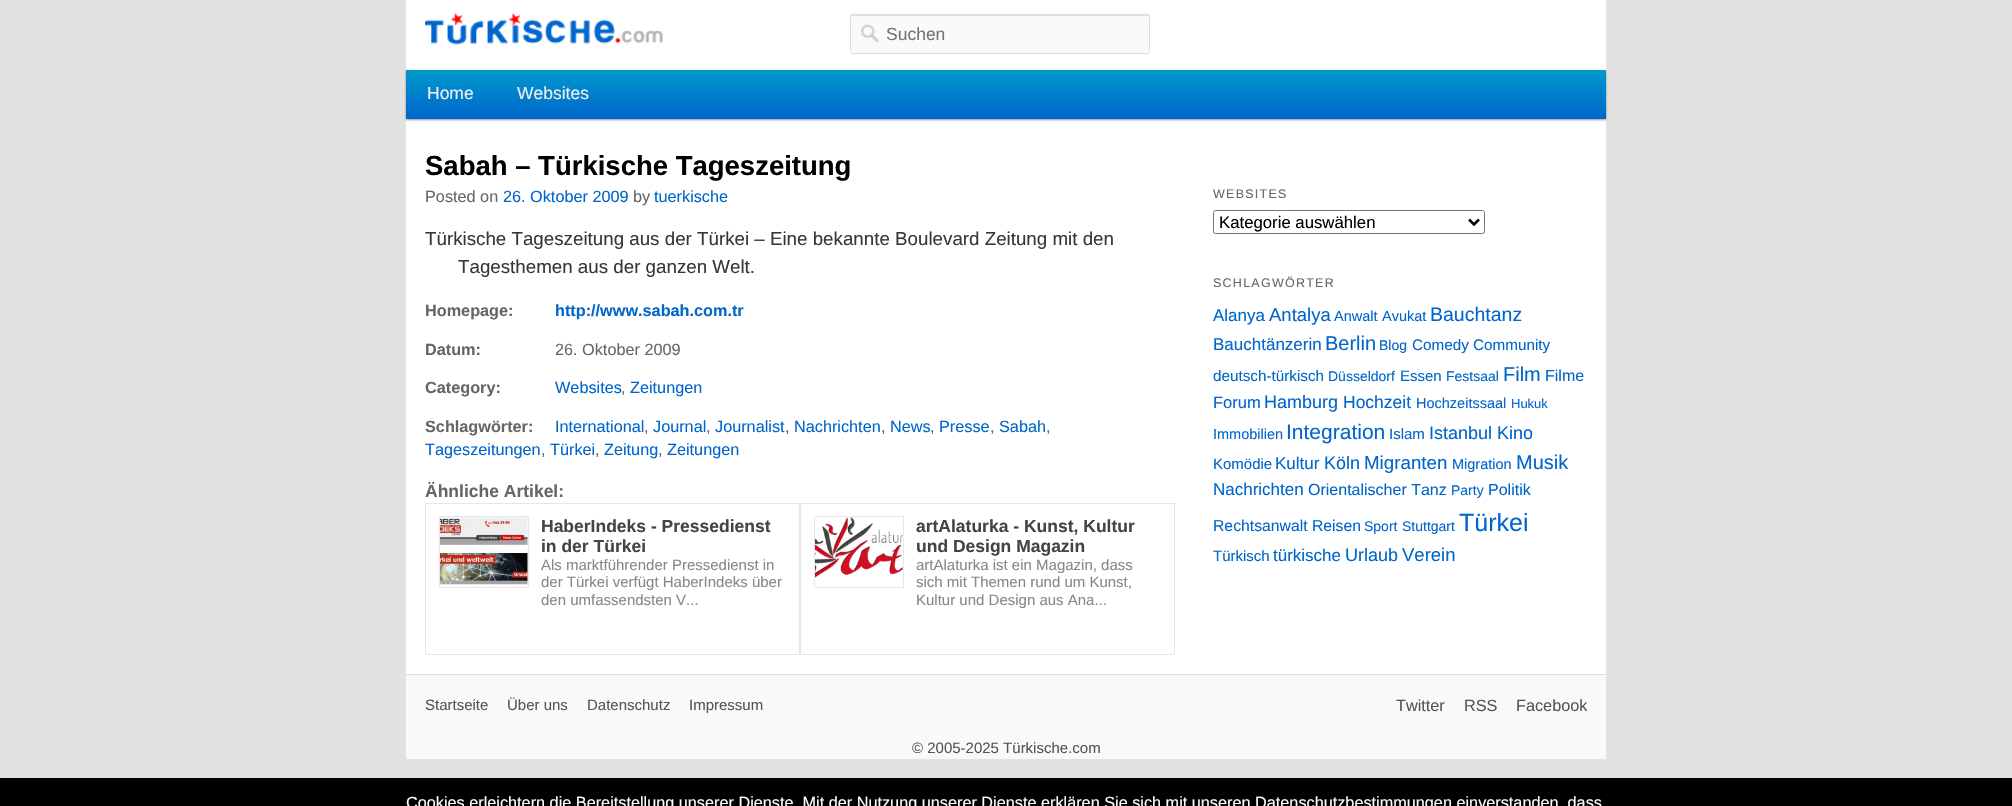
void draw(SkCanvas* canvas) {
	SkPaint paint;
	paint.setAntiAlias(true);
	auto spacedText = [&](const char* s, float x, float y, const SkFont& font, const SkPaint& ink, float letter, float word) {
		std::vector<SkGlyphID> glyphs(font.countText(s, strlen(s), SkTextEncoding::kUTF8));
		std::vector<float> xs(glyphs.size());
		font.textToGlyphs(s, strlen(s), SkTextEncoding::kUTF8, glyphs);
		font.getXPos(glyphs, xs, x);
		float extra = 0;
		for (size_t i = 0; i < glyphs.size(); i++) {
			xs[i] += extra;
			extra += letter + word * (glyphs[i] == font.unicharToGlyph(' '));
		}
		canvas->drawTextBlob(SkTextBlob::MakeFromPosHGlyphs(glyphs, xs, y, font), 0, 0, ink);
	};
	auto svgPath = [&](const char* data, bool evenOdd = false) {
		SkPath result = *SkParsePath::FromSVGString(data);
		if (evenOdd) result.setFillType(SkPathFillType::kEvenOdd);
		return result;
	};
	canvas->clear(0xffe2e2e2);
	paint.setColor(0xffffffff);
	canvas->drawRect(SkRect::MakeXYWH(406, 0, 1200, 674), paint);
	canvas->drawImageRect(SkImages::DeferredFromEncodedData(SkData::MakeFromFileName("img1.png")), SkRect::MakeXYWH(425, 13, 238, 32), SkSamplingOptions());
	paint.setColor(0xfffafafa);
	canvas->drawRoundRect(SkRect::MakeXYWH(850, 14, 300, 40), 2.5, 2.5, paint);
	paint.setColor(0xffe1e1e1);
	canvas->drawPath(svgPath("M852 16H1148L1149 17C1149 16 1149 15 1148 15H852H851V17Z"), paint);
	paint.setStroke(true);
	paint.setStrokeWidth(1);
	paint.setColor(0xffdddddd);
	canvas->drawRoundRect(SkRect::MakeXYWH(850.5, 14.5, 299, 39), 2, 2, paint);
	canvas->drawImageRect(SkImages::DeferredFromEncodedData(SkData::MakeFromFileName("img2.png")), SkRect::MakeXYWH(861, 24, 18, 19), SkSamplingOptions());
	SkFont f1(fontMgr->matchFamilyStyle("Liberation Sans", SkFontStyle::Normal()), 17.5);
	f1.setSubpixel(true);
	paint.setStroke(false);
	paint.setColor(0xff757575);
	canvas->drawString("Suchen", 886, 40, f1, paint);
	paint.setColor(0x66000000);
	paint.setMaskFilter(SkMaskFilter::MakeBlur(kNormal_SkBlurStyle, 1));
	canvas->drawRect(SkRect::MakeXYWH(406, 71, 1200, 49), paint);
	paint.setMaskFilter(nullptr);
	{
		const SkColor colors[] = {0xff0099cc, 0xff0066cc};
		const float stops[] = {0, 1};
		const SkPoint ends[] = {{1006, 70}, {1006, 119}};
		paint.setShader(SkGradientShader::MakeLinear(ends, colors, stops, 2, SkTileMode::kClamp));
		paint.setAlpha(255);
	}
	canvas->drawRect(SkRect::MakeXYWH(406, 70, 1200, 49), paint);
	paint.setShader(nullptr);
	paint.setColor(0xffeeeeee);
	canvas->drawString("Home", 427, 99, f1, paint);
	canvas->drawString("Websites", 517, 99, f1, paint);
	SkFont f2(fontMgr->matchFamilyStyle("Liberation Sans", SkFontStyle::Bold()), 27.5);
	f2.setSubpixel(true);
	paint.setColor(0xff000000);
	canvas->drawString("Sabah – Türkische Tageszeitung", 425, 175, f2, paint);
	SkFont f3(fontMgr->matchFamilyStyle("Liberation Sans", SkFontStyle::Normal()), 16.25);
	f3.setSubpixel(true);
	paint.setColor(0xff666666);
	canvas->drawString("Posted on", 425, 202, f3, paint);
	paint.setColor(0xff0066cc);
	canvas->drawString("26. Oktober 2009", 503, 202, f3, paint);
	paint.setColor(0xff666666);
	canvas->drawString("by", 633, 202, f3, paint);
	paint.setColor(0xff0066cc);
	canvas->drawString("tuerkische", 654, 202, f3, paint);
	SkFont f4(fontMgr->matchFamilyStyle("Liberation Sans", SkFontStyle::Normal()), 18.75);
	f4.setSubpixel(true);
	paint.setColor(0xff373737);
	canvas->drawString("Türkische Tageszeitung aus der Türkei – Eine bekannte Boulevard Zeitung mit den", 425, 245, f4, paint);
	canvas->drawString("Tagesthemen aus der ganzen Welt.", 458, 273, f4, paint);
	SkFont f5(fontMgr->matchFamilyStyle("Liberation Sans", SkFontStyle::Bold()), 16.25);
	f5.setSubpixel(true);
	paint.setColor(0xff666666);
	canvas->drawString("Homepage:", 425, 316, f5, paint);
	paint.setColor(0xff0066cc);
	canvas->drawString("http://www.sabah.com.tr", 555, 316, f5, paint);
	paint.setColor(0xff666666);
	canvas->drawString("Datum:", 425, 355, f5, paint);
	canvas->drawString("26. Oktober 2009", 555, 355, f3, paint);
	canvas->drawString("Category:", 425, 393, f5, paint);
	paint.setColor(0xff0066cc);
	canvas->drawString("Websites", 555, 393, f3, paint);
	paint.setColor(0xff666666);
	canvas->drawString(",", 621, 393, f3, paint);
	paint.setColor(0xff0066cc);
	canvas->drawString("Zeitungen", 630, 393, f3, paint);
	paint.setColor(0xff666666);
	canvas->drawString("Schlagwörter:", 425, 432, f5, paint);
	paint.setColor(0xff0066cc);
	canvas->drawString("International", 555, 432, f3, paint);
	paint.setColor(0xff666666);
	canvas->drawString(",", 644, 432, f3, paint);
	paint.setColor(0xff0066cc);
	canvas->drawString("Journal", 653, 432, f3, paint);
	paint.setColor(0xff666666);
	canvas->drawString(",", 706, 432, f3, paint);
	paint.setColor(0xff0066cc);
	canvas->drawString("Journalist", 715, 432, f3, paint);
	paint.setColor(0xff666666);
	canvas->drawString(",", 785, 432, f3, paint);
	paint.setColor(0xff0066cc);
	canvas->drawString("Nachrichten", 794, 432, f3, paint);
	paint.setColor(0xff666666);
	canvas->drawString(",", 881, 432, f3, paint);
	paint.setColor(0xff0066cc);
	canvas->drawString("News", 890, 432, f3, paint);
	paint.setColor(0xff666666);
	canvas->drawString(",", 930, 432, f3, paint);
	paint.setColor(0xff0066cc);
	canvas->drawString("Presse", 939, 432, f3, paint);
	paint.setColor(0xff666666);
	canvas->drawString(",", 990, 432, f3, paint);
	paint.setColor(0xff0066cc);
	canvas->drawString("Sabah", 999, 432, f3, paint);
	paint.setColor(0xff666666);
	canvas->drawString(",", 1046, 432, f3, paint);
	paint.setColor(0xff0066cc);
	canvas->drawString("Tageszeitungen", 425, 455, f3, paint);
	paint.setColor(0xff666666);
	canvas->drawString(",", 541, 455, f3, paint);
	paint.setColor(0xff0066cc);
	canvas->drawString("Türkei", 550, 455, f3, paint);
	paint.setColor(0xff666666);
	canvas->drawString(",", 595, 455, f3, paint);
	paint.setColor(0xff0066cc);
	canvas->drawString("Zeitung", 604, 455, f3, paint);
	paint.setColor(0xff666666);
	canvas->drawString(",", 658, 455, f3, paint);
	paint.setColor(0xff0066cc);
	canvas->drawString("Zeitungen", 667, 455, f3, paint);
	SkFont f6(fontMgr->matchFamilyStyle("Liberation Sans", SkFontStyle::Bold()), 17.5);
	f6.setSubpixel(true);
	paint.setColor(0xff666666);
	canvas->drawString("Ähnliche Artikel:", 425, 497, f6, paint);
	paint.setStroke(true);
	paint.setColor(0xffe7e7e7);
	canvas->drawRect(SkRect::MakeXYWH(425.5, 503.5, 374, 151), paint);
	canvas->drawRect(SkRect::MakeXYWH(439.5, 516.5, 89, 71), paint);
	canvas->drawImageRect(SkImages::DeferredFromEncodedData(SkData::MakeFromFileName("img3.png")), SkRect::MakeXYWH(440, 517, 88, 69), SkSamplingOptions());
	paint.setStroke(false);
	paint.setColor(0xff444444);
	canvas->drawString("HaberIndeks - Pressedienst", 541, 532, f6, paint);
	canvas->drawString("in der Türkei", 541, 552, f6, paint);
	SkFont f7(fontMgr->matchFamilyStyle("Liberation Sans", SkFontStyle::Normal()), 15);
	f7.setSubpixel(true);
	paint.setColor(0xff888888);
	canvas->drawString("Als marktführender Pressedienst in", 541, 570, f7, paint);
	canvas->drawString("der Türkei verfügt HaberIndeks über", 541, 587, f7, paint);
	canvas->drawString("den umfassendsten V...", 541, 605, f7, paint);
	paint.setStroke(true);
	paint.setColor(0xffe7e7e7);
	canvas->drawRect(SkRect::MakeXYWH(800.5, 503.5, 374, 151), paint);
	canvas->drawRect(SkRect::MakeXYWH(814.5, 516.5, 89, 71), paint);
	canvas->drawImageRect(SkImages::DeferredFromEncodedData(SkData::MakeFromFileName("img4.png")), SkRect::MakeXYWH(815, 517, 88, 61), SkSamplingOptions());
	paint.setStroke(false);
	paint.setColor(0xff444444);
	canvas->drawString("artAlaturka - Kunst, Kultur", 916, 532, f6, paint);
	canvas->drawString("und Design Magazin", 916, 552, f6, paint);
	paint.setColor(0xff888888);
	canvas->drawString("artAlaturka ist ein Magazin, dass", 916, 570, f7, paint);
	canvas->drawString("sich mit Themen rund um Kunst,", 916, 587, f7, paint);
	canvas->drawString("Kultur und Design aus Ana...", 916, 605, f7, paint);
	SkFont f8(fontMgr->matchFamilyStyle("Liberation Sans", SkFontStyle::Normal()), 12.5);
	f8.setSubpixel(true);
	paint.setColor(0xff666666);
	spacedText("WEBSITES", 1213, 198, f8, paint, 1.25, 0);
	paint.setStroke(true);
	paint.setColor(0xff767676);
	canvas->drawRoundRect(SkRect::MakeXYWH(1213.5, 210.5, 271, 23), 2, 2, paint);
	paint.setStrokeWidth(2.5);
	paint.setColor(0xff000000);
	canvas->drawPath(svgPath("M1469 219.5L1474 224.5L1479 219.5"), paint);
	SkFont f9(fontMgr->matchFamilyStyle("Liberation Sans", SkFontStyle::Normal()), 16.75);
	f9.setSubpixel(true);
	paint.setStroke(false);
	canvas->drawString("Kategorie auswählen", 1219, 228, f9, paint);
	paint.setColor(0xff666666);
	spacedText("SCHLAGWÖRTER", 1213, 287, f8, paint, 1.25, 0);
	SkFont f10(fontMgr->matchFamilyStyle("Liberation Sans", SkFontStyle::Normal()), 17);
	f10.setSubpixel(true);
	paint.setColor(0xff0066cc);
	canvas->drawString("Alanya", 1213, 321, f10, paint);
	SkFont f11(fontMgr->matchFamilyStyle("Liberation Sans", SkFontStyle::Normal()), 18.5);
	f11.setSubpixel(true);
	canvas->drawString("Antalya", 1269, 321, f11, paint);
	SkFont f12(fontMgr->matchFamilyStyle("Liberation Sans", SkFontStyle::Normal()), 14.5);
	f12.setSubpixel(true);
	canvas->drawString("Anwalt", 1334, 321, f12, paint);
	canvas->drawString("Avukat", 1382, 321, f12, paint);
	SkFont f13(fontMgr->matchFamilyStyle("Liberation Sans", SkFontStyle::Normal()), 19.5);
	f13.setSubpixel(true);
	canvas->drawString("Bauchtanz", 1430, 321, f13, paint);
	canvas->drawString("Bauchtänzerin", 1213, 350, f10, paint);
	SkFont f14(fontMgr->matchFamilyStyle("Liberation Sans", SkFontStyle::Normal()), 20);
	f14.setSubpixel(true);
	canvas->drawString("Berlin", 1325, 350, f14, paint);
	SkFont f15(fontMgr->matchFamilyStyle("Liberation Sans", SkFontStyle::Normal()), 14);
	f15.setSubpixel(true);
	canvas->drawString("Blog", 1379, 350, f15, paint);
	SkFont f16(fontMgr->matchFamilyStyle("Liberation Sans", SkFontStyle::Normal()), 15.25);
	f16.setSubpixel(true);
	canvas->drawString("Comedy Community", 1412, 350, f16, paint);
	canvas->drawString("deutsch-türkisch", 1213, 381, f16, paint);
	canvas->drawString("Düsseldorf", 1328, 381, f15, paint);
	canvas->drawString("Essen", 1400, 381, f7, paint);
	canvas->drawString("Festsaal", 1446, 381, f15, paint);
	canvas->drawString("Film", 1503, 381, f14, paint);
	SkFont f17(fontMgr->matchFamilyStyle("Liberation Sans", SkFontStyle::Normal()), 16);
	f17.setSubpixel(true);
	canvas->drawString("Filme", 1545, 381, f17, paint);
	SkFont f18(fontMgr->matchFamilyStyle("Liberation Sans", SkFontStyle::Normal()), 16.5);
	f18.setSubpixel(true);
	canvas->drawString("Forum", 1213, 408, f18, paint);
	SkFont f19(fontMgr->matchFamilyStyle("Liberation Sans", SkFontStyle::Normal()), 18);
	f19.setSubpixel(true);
	canvas->drawString("Hamburg", 1264, 408, f19, paint);
	canvas->drawString("Hochzeit", 1343, 408, f1, paint);
	canvas->drawString("Hochzeitssaal", 1416, 408, f12, paint);
	SkFont f20(fontMgr->matchFamilyStyle("Liberation Sans", SkFontStyle::Normal()), 13);
	f20.setSubpixel(true);
	canvas->drawString("Hukuk", 1511, 408, f20, paint);
	canvas->drawString("Immobilien", 1213, 439, f12, paint);
	SkFont f21(fontMgr->matchFamilyStyle("Liberation Sans", SkFontStyle::Normal()), 21);
	f21.setSubpixel(true);
	canvas->drawString("Integration", 1286, 439, f21, paint);
	canvas->drawString("Islam", 1389, 439, f7, paint);
	canvas->drawString("Istanbul", 1429, 439, f19, paint);
	canvas->drawString("Kino", 1497, 439, f19, paint);
	canvas->drawString("Komödie", 1213, 469, f7, paint);
	canvas->drawString("Kultur", 1275, 469, f10, paint);
	canvas->drawString("Köln", 1324, 469, f19, paint);
	canvas->drawString("Migranten", 1364, 469, f4, paint);
	canvas->drawString("Migration", 1452, 469, f12, paint);
	canvas->drawString("Musik", 1516, 469, f14, paint);
	canvas->drawString("Nachrichten", 1213, 495, f10, paint);
	canvas->drawString("Orientalischer Tanz", 1308, 495, f17, paint);
	canvas->drawString("Party", 1451, 495, f15, paint);
	canvas->drawString("Politik", 1488, 495, f17, paint);
	SkFont f22(fontMgr->matchFamilyStyle("Liberation Sans", SkFontStyle::Normal()), 15.75);
	f22.setSubpixel(true);
	canvas->drawString("Rechtsanwalt Reisen", 1213, 531, f22, paint);
	canvas->drawString("Sport", 1364, 531, f15, paint);
	canvas->drawString("Stuttgart", 1402, 531, f15, paint);
	SkFont f23(fontMgr->matchFamilyStyle("Liberation Sans", SkFontStyle::Normal()), 25);
	f23.setSubpixel(true);
	canvas->drawString("Türkei", 1459, 531, f23, paint);
	canvas->drawString("Türkisch", 1213, 561, f7, paint);
	canvas->drawString("türkische", 1273, 561, f10, paint);
	canvas->drawString("Urlaub", 1345, 561, f19, paint);
	canvas->drawString("Verein", 1402, 561, f11, paint);
	paint.setColor(0xffdddddd);
	canvas->drawRect(SkRect::MakeXYWH(406, 674, 1200, 1), paint);
	paint.setColor(0xfff9f9f9);
	canvas->drawRect(SkRect::MakeXYWH(406, 675, 1200, 84), paint);
	paint.setColor(0xff555555);
	canvas->drawString("Startseite", 425, 710, f7, paint);
	canvas->drawString("Über uns", 507, 710, f7, paint);
	canvas->drawString("Datenschutz", 587, 710, f7, paint);
	canvas->drawString("Impressum", 689, 710, f7, paint);
	canvas->drawString("Twitter", 1396, 711, f3, paint);
	canvas->drawString("RSS", 1464, 711, f3, paint);
	canvas->drawString("Facebook", 1516, 711, f3, paint);
	canvas->drawString("© 2005-2025 Türkische.com", 912, 753, f7, paint);
	paint.setColor(0xff000000);
	canvas->drawRect(SkRect::MakeXYWH(0, 778, 2012, 28), paint);
	paint.setColor(0xffffffff);
	canvas->drawString("Cookies erleichtern die Bereitstellung unserer Dienste. Mit der Nutzung unserer Dienste erklären Sie sich mit unseren Datenschutzbestimmungen einverstanden, dass", 406, 808, f3, paint);
}
